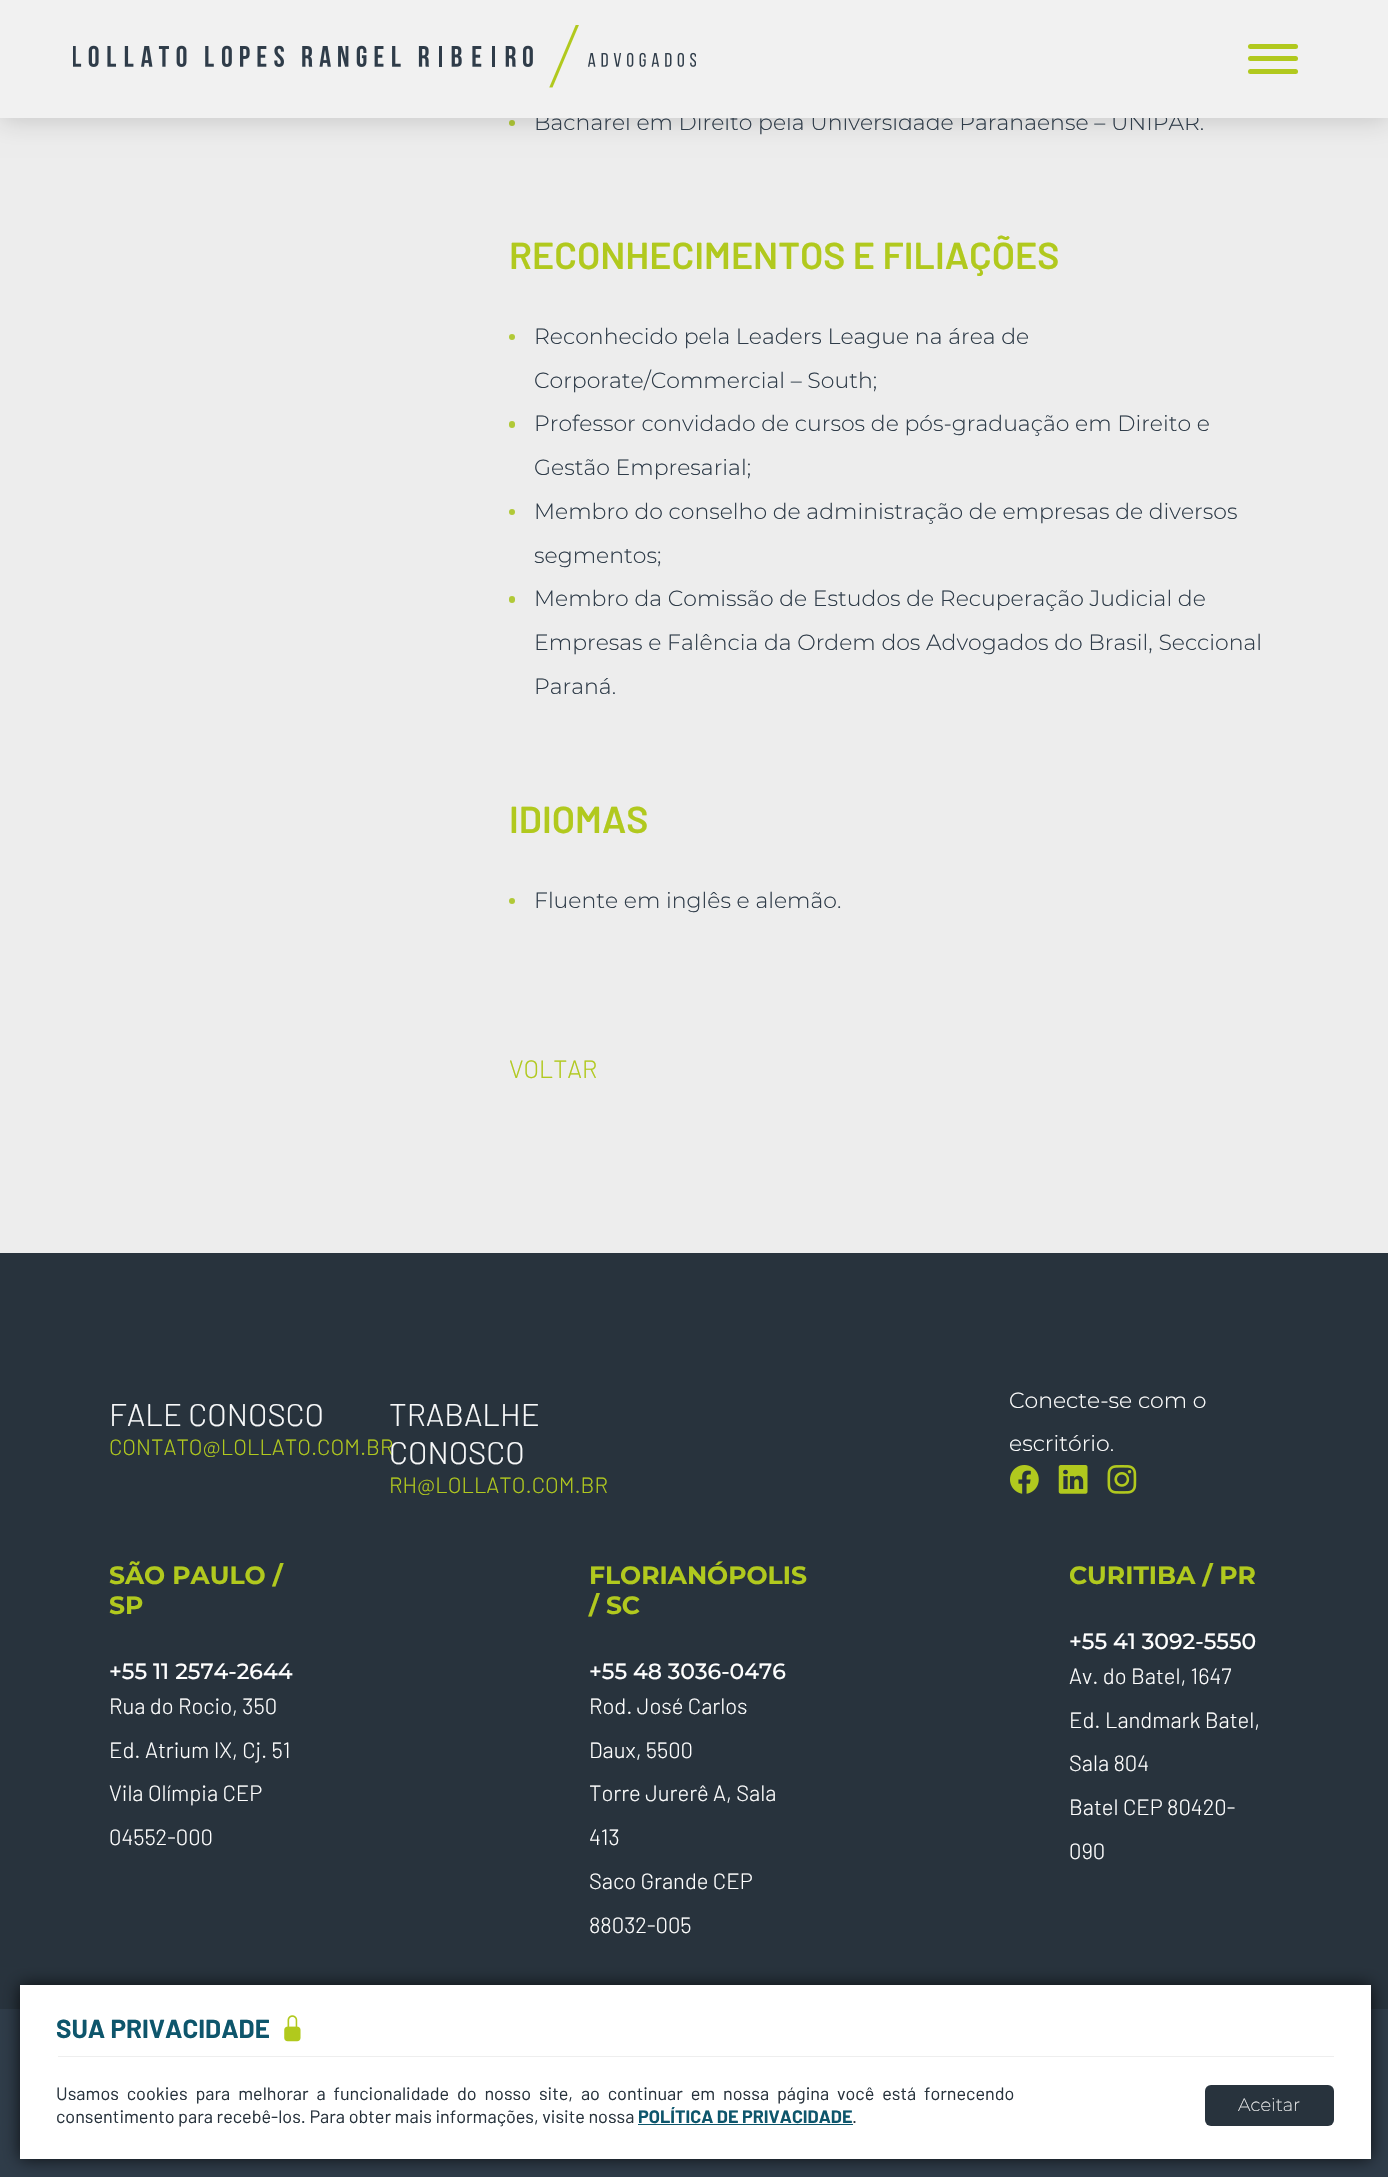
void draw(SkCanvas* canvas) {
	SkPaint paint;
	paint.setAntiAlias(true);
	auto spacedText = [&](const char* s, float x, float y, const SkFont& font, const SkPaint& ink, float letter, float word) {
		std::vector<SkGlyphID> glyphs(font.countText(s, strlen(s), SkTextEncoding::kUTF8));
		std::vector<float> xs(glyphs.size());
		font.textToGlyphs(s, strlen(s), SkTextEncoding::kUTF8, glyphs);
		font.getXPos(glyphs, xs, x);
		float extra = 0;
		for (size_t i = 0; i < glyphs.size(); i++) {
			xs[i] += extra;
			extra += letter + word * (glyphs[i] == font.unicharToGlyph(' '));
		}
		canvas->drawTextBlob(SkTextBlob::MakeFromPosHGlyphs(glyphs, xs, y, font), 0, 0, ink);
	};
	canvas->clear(0xffededed);
	paint.setColor(0xffb1c937);
	canvas->drawCircle(512, 123, 3, paint);
	paint.setColor(0x29000000);
	paint.setMaskFilter(SkMaskFilter::MakeBlur(kNormal_SkBlurStyle, 12.5));
	canvas->drawRect(SkRect::MakeXYWH(0, 4, 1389, 117), paint);
	paint.setMaskFilter(nullptr);
	SkFont f1(fontMgr->matchFamilyStyle("Montserrat", SkFontStyle(300, SkFontStyle::kNormal_Width, SkFontStyle::kUpright_Slant)), 22);
	f1.setSubpixel(true);
	paint.setColor(0xff2f3c49);
	canvas->drawString("Bacharel em Direito pela Universidade Paranaense – UNIPAR.", 534, 130, f1, paint);
	paint.setColor(0xfff1f1f1);
	canvas->drawRect(SkRect::MakeXYWH(0, 0, 1388, 118), paint);
	canvas->drawImageRect(SkImages::DeferredFromEncodedData(SkData::MakeFromFileName("img1.png")), SkRect::MakeXYWH(73, 25, 623, 63), SkSamplingOptions());
	paint.setColor(0xffb1c91e);
	canvas->drawRoundRect(SkRect::MakeXYWH(1248, 56, 50, 5), 2.5, 2.5, paint);
	canvas->drawRoundRect(SkRect::MakeXYWH(1248, 44, 50, 5), 2.5, 2.5, paint);
	canvas->drawRoundRect(SkRect::MakeXYWH(1248, 69, 50, 5), 2.5, 2.5, paint);
	SkFont f2(fontMgr->matchFamilyStyle("Barlow", SkFontStyle(600, SkFontStyle::kNormal_Width, SkFontStyle::kUpright_Slant)), 37.5);
	f2.setSubpixel(true);
	canvas->drawString("RECONHECIMENTOS E FILIAÇÕES", 509, 269, f2, paint);
	paint.setColor(0xffb1c937);
	canvas->drawCircle(512, 337, 3, paint);
	paint.setColor(0xff2f3c49);
	canvas->drawString("Reconhecido pela Leaders League na área de", 534, 344, f1, paint);
	canvas->drawString("Corporate/Commercial – South;", 534, 388, f1, paint);
	paint.setColor(0xffb1c937);
	canvas->drawRoundRect(SkRect::MakeXYWH(509, 421, 6, 7), 3, 3, paint);
	paint.setColor(0xff2f3c49);
	canvas->drawString("Professor convidado de cursos de pós-graduação em Direito e", 534, 431, f1, paint);
	canvas->drawString("Gestão Empresarial;", 534, 475, f1, paint);
	paint.setColor(0xffb1c937);
	canvas->drawCircle(512, 512, 3, paint);
	paint.setColor(0xff2f3c49);
	canvas->drawString("Membro do conselho de administração de empresas de diversos", 534, 519, f1, paint);
	canvas->drawString("segmentos;", 534, 563, f1, paint);
	paint.setColor(0xffb1c937);
	canvas->drawRoundRect(SkRect::MakeXYWH(509, 596, 6, 7), 3, 3, paint);
	paint.setColor(0xff2f3c49);
	canvas->drawString("Membro da Comissão de Estudos de Recuperação Judicial de", 534, 606, f1, paint);
	canvas->drawString("Empresas e Falência da Ordem dos Advogados do Brasil, Seccional", 534, 650, f1, paint);
	canvas->drawString("Paraná.", 534, 694, f1, paint);
	paint.setColor(0xffb1c91e);
	canvas->drawString("IDIOMAS", 509, 833, f2, paint);
	paint.setColor(0xffb1c937);
	canvas->drawCircle(512, 901, 3, paint);
	paint.setColor(0xff2f3c49);
	canvas->drawString("Fluente em inglês e alemão.", 534, 908, f1, paint);
	SkFont f3(fontMgr->matchFamilyStyle("Barlow", SkFontStyle(300, SkFontStyle::kNormal_Width, SkFontStyle::kUpright_Slant)), 25);
	f3.setSubpixel(true);
	paint.setColor(0xffb1c91e);
	canvas->drawString("VOLTAR", 509, 1078, f3, paint);
	paint.setColor(0xff28333d);
	canvas->drawRect(SkRect::MakeXYWH(0, 1253, 1388, 756), paint);
	SkFont f4(fontMgr->matchFamilyStyle("Barlow", SkFontStyle(300, SkFontStyle::kNormal_Width, SkFontStyle::kUpright_Slant)), 31.25);
	f4.setSubpixel(true);
	paint.setColor(0xfff8f9fa);
	canvas->drawString("FALE CONOSCO", 109, 1426, f4, paint);
	SkFont f5(fontMgr->matchFamilyStyle("Barlow", SkFontStyle(300, SkFontStyle::kNormal_Width, SkFontStyle::kUpright_Slant)), 22);
	f5.setSubpixel(true);
	paint.setColor(0xffb1c91e);
	canvas->drawString("CONTATO@LOLLATO.COM.BR", 109, 1455, f5, paint);
	paint.setColor(0xfff8f9fa);
	canvas->drawString("TRABALHE", 389, 1426, f4, paint);
	canvas->drawString("CONOSCO", 389, 1464, f4, paint);
	paint.setColor(0xffb1c91e);
	canvas->drawString("RH@LOLLATO.COM.BR", 389, 1493, f5, paint);
	paint.setColor(0xffffffff);
	canvas->drawString("Conecte-se com o", 1009, 1408, f1, paint);
	canvas->drawString("escritório.", 1009, 1451, f1, paint);
	canvas->drawImageRect(SkImages::DeferredFromEncodedData(SkData::MakeFromFileName("img2.png")), SkRect::MakeXYWH(1010, 1465, 29, 29), SkSamplingOptions());
	canvas->drawImageRect(SkImages::DeferredFromEncodedData(SkData::MakeFromFileName("img3.png")), SkRect::MakeXYWH(1058, 1465, 30, 29), SkSamplingOptions());
	canvas->drawImageRect(SkImages::DeferredFromEncodedData(SkData::MakeFromFileName("img4.png")), SkRect::MakeXYWH(1107, 1465, 30, 29), SkSamplingOptions());
	SkFont f6(fontMgr->matchFamilyStyle("Montserrat", SkFontStyle::Bold()), 25);
	f6.setSubpixel(true);
	paint.setColor(0xffb1c91e);
	canvas->drawString("SÃO PAULO /", 109, 1584, f6, paint);
	canvas->drawString("SP", 109, 1614, f6, paint);
	SkFont f7(fontMgr->matchFamilyStyle("Montserrat", SkFontStyle(500, SkFontStyle::kNormal_Width, SkFontStyle::kUpright_Slant)), 22);
	f7.setSubpixel(true);
	paint.setColor(0xffffffff);
	canvas->drawString("+55 11 2574-2644", 109, 1679, f7, paint);
	canvas->drawString("Rua do Rocio, 350", 109, 1714, f5, paint);
	canvas->drawString("Ed. Atrium IX, Cj. 51", 109, 1758, f5, paint);
	canvas->drawString("Vila Olímpia CEP", 109, 1801, f5, paint);
	canvas->drawString("04552-000", 109, 1845, f5, paint);
	paint.setColor(0xffb1c91e);
	canvas->drawString("FLORIANÓPOLIS", 589, 1584, f6, paint);
	canvas->drawString("/ SC", 589, 1614, f6, paint);
	paint.setColor(0xffffffff);
	canvas->drawString("+55 48 3036-0476", 589, 1679, f7, paint);
	canvas->drawString("Rod. José Carlos", 589, 1714, f5, paint);
	canvas->drawString("Daux, 5500", 589, 1758, f5, paint);
	canvas->drawString("Torre Jurerê A, Sala", 589, 1801, f5, paint);
	canvas->drawString("413", 589, 1845, f5, paint);
	canvas->drawString("Saco Grande CEP", 589, 1889, f5, paint);
	canvas->drawString("88032-005", 589, 1933, f5, paint);
	paint.setColor(0xffb1c91e);
	canvas->drawString("CURITIBA / PR", 1069, 1584, f6, paint);
	paint.setColor(0xffffffff);
	canvas->drawString("+55 41 3092-5550", 1069, 1649, f7, paint);
	canvas->drawString("Av. do Batel, 1647", 1069, 1684, f5, paint);
	canvas->drawString("Ed. Landmark Batel,", 1069, 1728, f5, paint);
	canvas->drawString("Sala 804", 1069, 1771, f5, paint);
	canvas->drawString("Batel CEP 80420-", 1069, 1815, f5, paint);
	canvas->drawString("090", 1069, 1859, f5, paint);
	paint.setColor(0xff2f3c49);
	canvas->drawRect(SkRect::MakeXYWH(0, 2009, 1388, 168), paint);
	paint.setColor(0xbf000000);
	paint.setMaskFilter(SkMaskFilter::MakeBlur(kNormal_SkBlurStyle, 8));
	canvas->drawRect(SkRect::MakeXYWH(20, 1985, 1351, 174), paint);
	paint.setMaskFilter(nullptr);
	paint.setColor(0xffffffff);
	canvas->drawRect(SkRect::MakeXYWH(20, 1985, 1351, 174), paint);
	paint.setColor(0xffeeeeee);
	canvas->drawRect(SkRect::MakeXYWH(58, 2056, 1276, 1), paint);
	SkFont f8(fontMgr->matchFamilyStyle("Barlow", SkFontStyle::Bold()), 26);
	f8.setSubpixel(true);
	paint.setColor(0xff0e566c);
	canvas->drawString("SUA PRIVACIDADE", 56, 2038, f8, paint);
	canvas->drawImageRect(SkImages::DeferredFromEncodedData(SkData::MakeFromFileName("img5.png")), SkRect::MakeXYWH(284, 2015, 17, 27), SkSamplingOptions());
	SkFont f9(fontMgr->matchFamilyStyle("Barlow", SkFontStyle::Normal()), 18);
	f9.setSubpixel(true);
	paint.setColor(0xff28333d);
	spacedText("Usamos cookies para melhorar a funcionalidade do nosso site, ao continuar em nossa página você está fornecendo", 56, 2100, f9, paint, 0, 4.25);
	canvas->drawString("consentimento para recebê-los. Para obter mais informações, visite nossa", 56, 2123, f9, paint);
	SkFont f10(fontMgr->matchFamilyStyle("Barlow", SkFontStyle::Bold()), 18);
	f10.setSubpixel(true);
	paint.setColor(0xff0e566c);
	canvas->drawString("POLÍTICA DE PRIVACIDADE", 638, 2123, f10, paint);
	canvas->drawRect(SkRect::MakeXYWH(638, 2124, 215, 1), paint);
	paint.setColor(0xff28333d);
	canvas->drawString(".", 852, 2123, f9, paint);
	canvas->drawRoundRect(SkRect::MakeXYWH(1205, 2085, 129, 41), 6, 6, paint);
	SkFont f11(fontMgr->matchFamilyStyle("Montserrat", SkFontStyle(200, SkFontStyle::kNormal_Width, SkFontStyle::kUpright_Slant)), 18);
	f11.setSubpixel(true);
	paint.setColor(0xffffffff);
	canvas->drawString("Aceitar", 1238, 2111, f11, paint);
}
